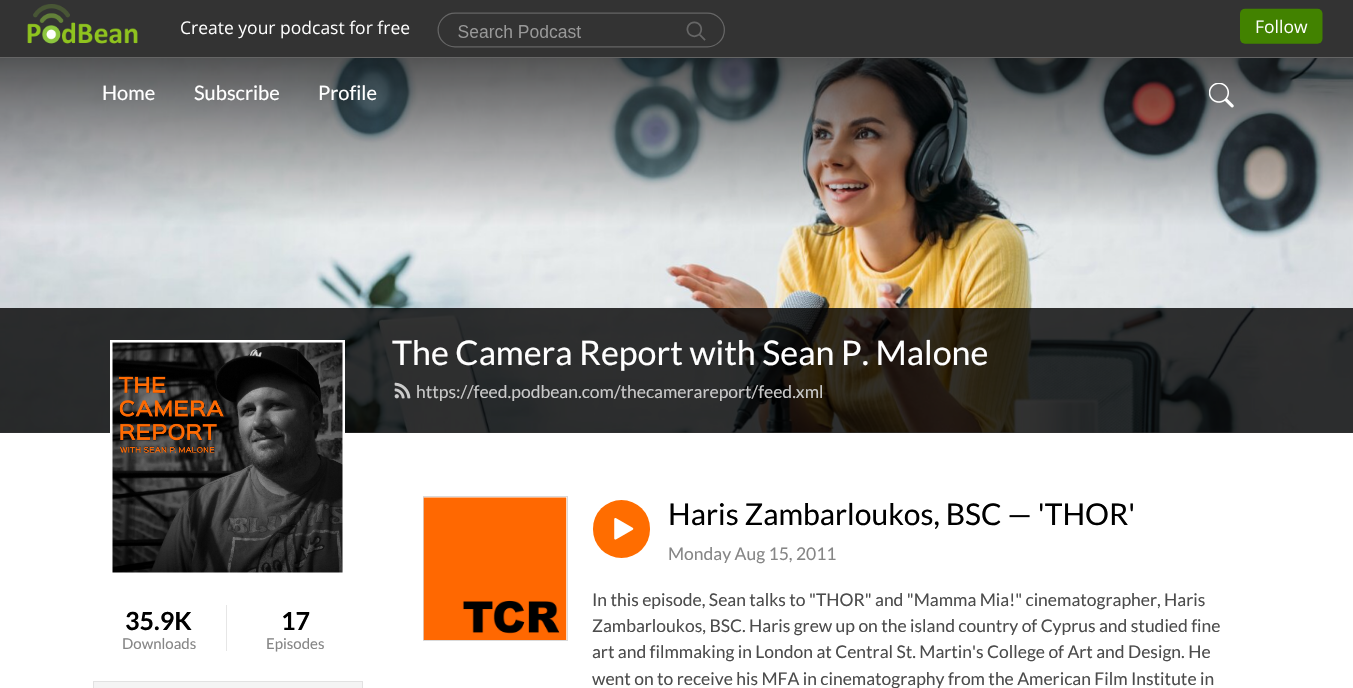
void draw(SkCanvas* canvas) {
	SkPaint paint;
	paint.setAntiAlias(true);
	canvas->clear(0xffffffff);
	paint.setColor(0xff333333);
	canvas->drawRect(SkRect::MakeXYWH(0, 0, 1353, 4), paint);
	canvas->drawImageRect(SkImages::DeferredFromEncodedData(SkData::MakeFromFileName("img1.png")), SkRect::MakeXYWH(0, 4, 1353, 54), SkSamplingOptions());
	canvas->drawImageRect(SkImages::DeferredFromEncodedData(SkData::MakeFromFileName("img3.png")), SkRect::MakeXYWH(0, 58, 1353, 375), SkSamplingOptions());
	SkFont f1(fontMgr->matchFamilyStyle("Lato", SkFontStyle::Normal()), 20);
	f1.setSubpixel(true);
	paint.setColor(0xffffffff);
	canvas->drawString("Home", 102, 100, f1, paint);
	canvas->drawString("Subscribe", 194, 100, f1, paint);
	canvas->drawString("Profile", 318, 100, f1, paint);
	canvas->drawImageRect(SkImages::DeferredFromEncodedData(SkData::MakeFromFileName("img2.png")), SkRect::MakeXYWH(1209, 83, 25, 25), SkSamplingOptions());
	paint.setColor(0xcc000000);
	canvas->drawRect(SkRect::MakeXYWH(0, 308, 1353, 125), paint);
	SkFont f2(fontMgr->matchFamilyStyle("Lato", SkFontStyle::Normal()), 34);
	f2.setSubpixel(true);
	paint.setColor(0xffffffff);
	canvas->drawString("The Camera Report with Sean P. Malone", 392, 365, f2, paint);
	canvas->drawImageRect(SkImages::DeferredFromEncodedData(SkData::MakeFromFileName("img4.png")), SkRect::MakeXYWH(394, 382, 17, 17), SkSamplingOptions());
	SkFont f3(fontMgr->matchFamilyStyle("Lato", SkFontStyle::Normal()), 17.5);
	f3.setSubpixel(true);
	paint.setColor(0xffc9c9c9);
	canvas->drawString("https://feed.podbean.com/thecamerareport/feed.xml", 416, 398, f3, paint);
	paint.setStroke(true);
	paint.setStrokeWidth(3);
	paint.setColor(0xffffffff);
	canvas->drawRect(SkRect::MakeXYWH(111.5, 341.5, 232, 232), paint);
	canvas->drawImageRect(SkImages::DeferredFromEncodedData(SkData::MakeFromFileName("img5.png")), SkRect::MakeXYWH(112, 342, 231, 231), SkSamplingOptions());
	SkFont f4(fontMgr->matchFamilyStyle("Lato", SkFontStyle::Bold()), 25);
	f4.setSubpixel(true);
	paint.setStroke(false);
	paint.setColor(0xff000000);
	canvas->drawString("35.9K", 125, 630, f4, paint);
	SkFont f5(fontMgr->matchFamilyStyle("Lato", SkFontStyle::Normal()), 15);
	f5.setSubpixel(true);
	paint.setColor(0xff868686);
	canvas->drawString("Downloads", 122, 649, f5, paint);
	paint.setColor(0xffe6e6e6);
	canvas->drawRect(SkRect::MakeXYWH(226, 605, 1, 46), paint);
	paint.setColor(0xff000000);
	canvas->drawString("17", 281, 630, f4, paint);
	paint.setColor(0xff868686);
	canvas->drawString("Episodes", 266, 649, f5, paint);
	paint.setColor(0xfff4f4f4);
	canvas->drawRect(SkRect::MakeXYWH(93.5, 681.5, 269, 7), paint);
	paint.setStroke(true);
	paint.setStrokeWidth(1);
	paint.setColor(0xffe2e2e2);
	canvas->drawRect(SkRect::MakeXYWH(93.5, 681.5, 269, 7), paint);
	paint.setColor(0xffdadada);
	canvas->drawRect(SkRect::MakeXYWH(423.5, 496.5, 144, 144), paint);
	canvas->drawImageRect(SkImages::DeferredFromEncodedData(SkData::MakeFromFileName("img6.png")), SkRect::MakeXYWH(423, 497, 144, 143), SkSamplingOptions());
	paint.setStroke(false);
	paint.setColor(0xffff6d00);
	canvas->drawRoundRect(SkRect::MakeXYWH(593, 500, 57, 58), 28.5, 28.5, paint);
	canvas->drawImageRect(SkImages::DeferredFromEncodedData(SkData::MakeFromFileName("img7.png")), SkRect::MakeXYWH(614, 518, 20, 22), SkSamplingOptions());
	SkFont f6(fontMgr->matchFamilyStyle("Lato", SkFontStyle::Normal()), 30);
	f6.setSubpixel(true);
	paint.setColor(0xff000000);
	canvas->drawString("Haris Zambarloukos, BSC — 'THOR'", 668, 525, f6, paint);
	paint.setColor(0xff868686);
	canvas->drawString("Monday Aug 15, 2011", 668, 560, f3, paint);
	paint.setColor(0xff4c4c4c);
	canvas->drawString("In this episode, Sean talks to \"THOR\" and \"Mamma Mia!\" cinematographer, Haris", 592, 606, f3, paint);
	canvas->drawString("Zambarloukos, BSC. Haris grew up on the island country of Cyprus and studied fine", 592, 632, f3, paint);
	canvas->drawString("art and filmmaking in London at Central St. Martin's College of Art and Design. He", 592, 658, f3, paint);
	canvas->drawString("went on to receive his MFA in cinematography from the American Film Institute in", 592, 685, f3, paint);
}
